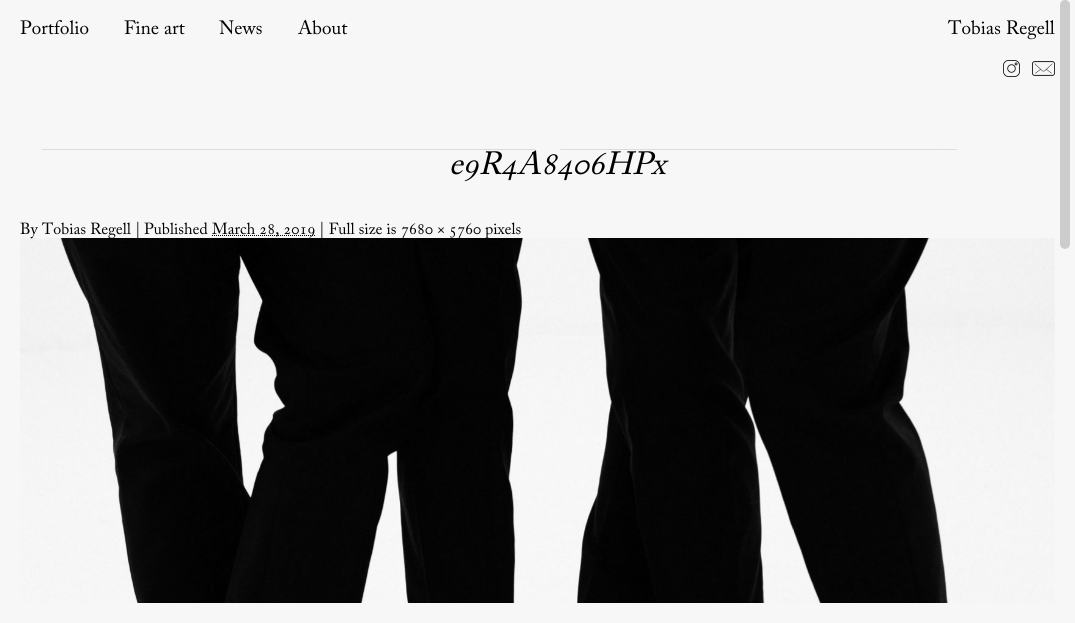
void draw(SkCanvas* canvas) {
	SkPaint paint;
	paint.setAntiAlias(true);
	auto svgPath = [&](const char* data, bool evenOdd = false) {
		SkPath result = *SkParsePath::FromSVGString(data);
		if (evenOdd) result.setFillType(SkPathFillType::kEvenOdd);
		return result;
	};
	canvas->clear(0xfff7f7f7);
	canvas->drawImageRect(SkImages::DeferredFromEncodedData(SkData::MakeFromFileName("img1.png")), SkRect::MakeXYWH(20, 20, 69, 15), SkSamplingOptions());
	canvas->drawImageRect(SkImages::DeferredFromEncodedData(SkData::MakeFromFileName("img2.png")), SkRect::MakeXYWH(124, 20, 61, 15), SkSamplingOptions());
	canvas->drawImageRect(SkImages::DeferredFromEncodedData(SkData::MakeFromFileName("img3.png")), SkRect::MakeXYWH(219, 20, 43, 15), SkSamplingOptions());
	canvas->drawImageRect(SkImages::DeferredFromEncodedData(SkData::MakeFromFileName("img4.png")), SkRect::MakeXYWH(298, 19, 50, 16), SkSamplingOptions());
	canvas->drawImageRect(SkImages::DeferredFromEncodedData(SkData::MakeFromFileName("img5.png")), SkRect::MakeXYWH(947, 19, 108, 21), SkSamplingOptions());
	canvas->drawImageRect(SkImages::DeferredFromEncodedData(SkData::MakeFromFileName("img6.png")), SkRect::MakeXYWH(1003, 60, 17, 17), SkSamplingOptions());
	canvas->drawImageRect(SkImages::DeferredFromEncodedData(SkData::MakeFromFileName("img7.png")), SkRect::MakeXYWH(1032, 61, 23, 15), SkSamplingOptions());
	canvas->drawImageRect(SkImages::DeferredFromEncodedData(SkData::MakeFromFileName("img8.png")), SkRect::MakeXYWH(20, 149, 1035, 454), SkSamplingOptions());
	paint.setColor(0xfff7f7f7);
	canvas->drawRect(SkRect::MakeXYWH(20, 150, 1035, 88), paint);
	canvas->drawImageRect(SkImages::DeferredFromEncodedData(SkData::MakeFromFileName("img9.png")), SkRect::MakeXYWH(451, 150, 218, 32), SkSamplingOptions());
	canvas->drawImageRect(SkImages::DeferredFromEncodedData(SkData::MakeFromFileName("img10.png")), SkRect::MakeXYWH(20, 222, 18, 17), SkSamplingOptions());
	canvas->drawImageRect(SkImages::DeferredFromEncodedData(SkData::MakeFromFileName("img11.png")), SkRect::MakeXYWH(41, 222, 90, 16), SkSamplingOptions());
	canvas->drawImageRect(SkImages::DeferredFromEncodedData(SkData::MakeFromFileName("img12.png")), SkRect::MakeXYWH(137, 221, 2, 17), SkSamplingOptions());
	canvas->drawImageRect(SkImages::DeferredFromEncodedData(SkData::MakeFromFileName("img13.png")), SkRect::MakeXYWH(144, 222, 64, 13), SkSamplingOptions());
	paint.setStroke(true);
	paint.setStrokeWidth(1);
	paint.setColor(0xff000000);
	paint.setPathEffect(SkDashPathEffect::Make({{1, 1}}, 0));
	canvas->drawPath(svgPath("M212 235.5H315.5"), paint);
	paint.setPathEffect(nullptr);
	canvas->drawImageRect(SkImages::DeferredFromEncodedData(SkData::MakeFromFileName("img14.png")), SkRect::MakeXYWH(212, 222, 103, 16), SkSamplingOptions());
	canvas->drawImageRect(SkImages::DeferredFromEncodedData(SkData::MakeFromFileName("img15.png")), SkRect::MakeXYWH(321, 221, 75, 17), SkSamplingOptions());
	canvas->drawImageRect(SkImages::DeferredFromEncodedData(SkData::MakeFromFileName("img16.png")), SkRect::MakeXYWH(402, 223, 79, 15), SkSamplingOptions());
	canvas->drawImageRect(SkImages::DeferredFromEncodedData(SkData::MakeFromFileName("img17.png")), SkRect::MakeXYWH(485, 222, 36, 16), SkSamplingOptions());
	paint.setPathEffect(SkDashPathEffect::Make({{1, 1}}, 0));
	canvas->drawPath(svgPath("M212 238.5H315"), paint);
	paint.setPathEffect(nullptr);
	paint.setStroke(false);
	paint.setColor(0xffcccccc);
	canvas->drawRoundRect(SkRect::MakeXYWH(1060, 0, 10, 249), 5, 5, paint);
}
